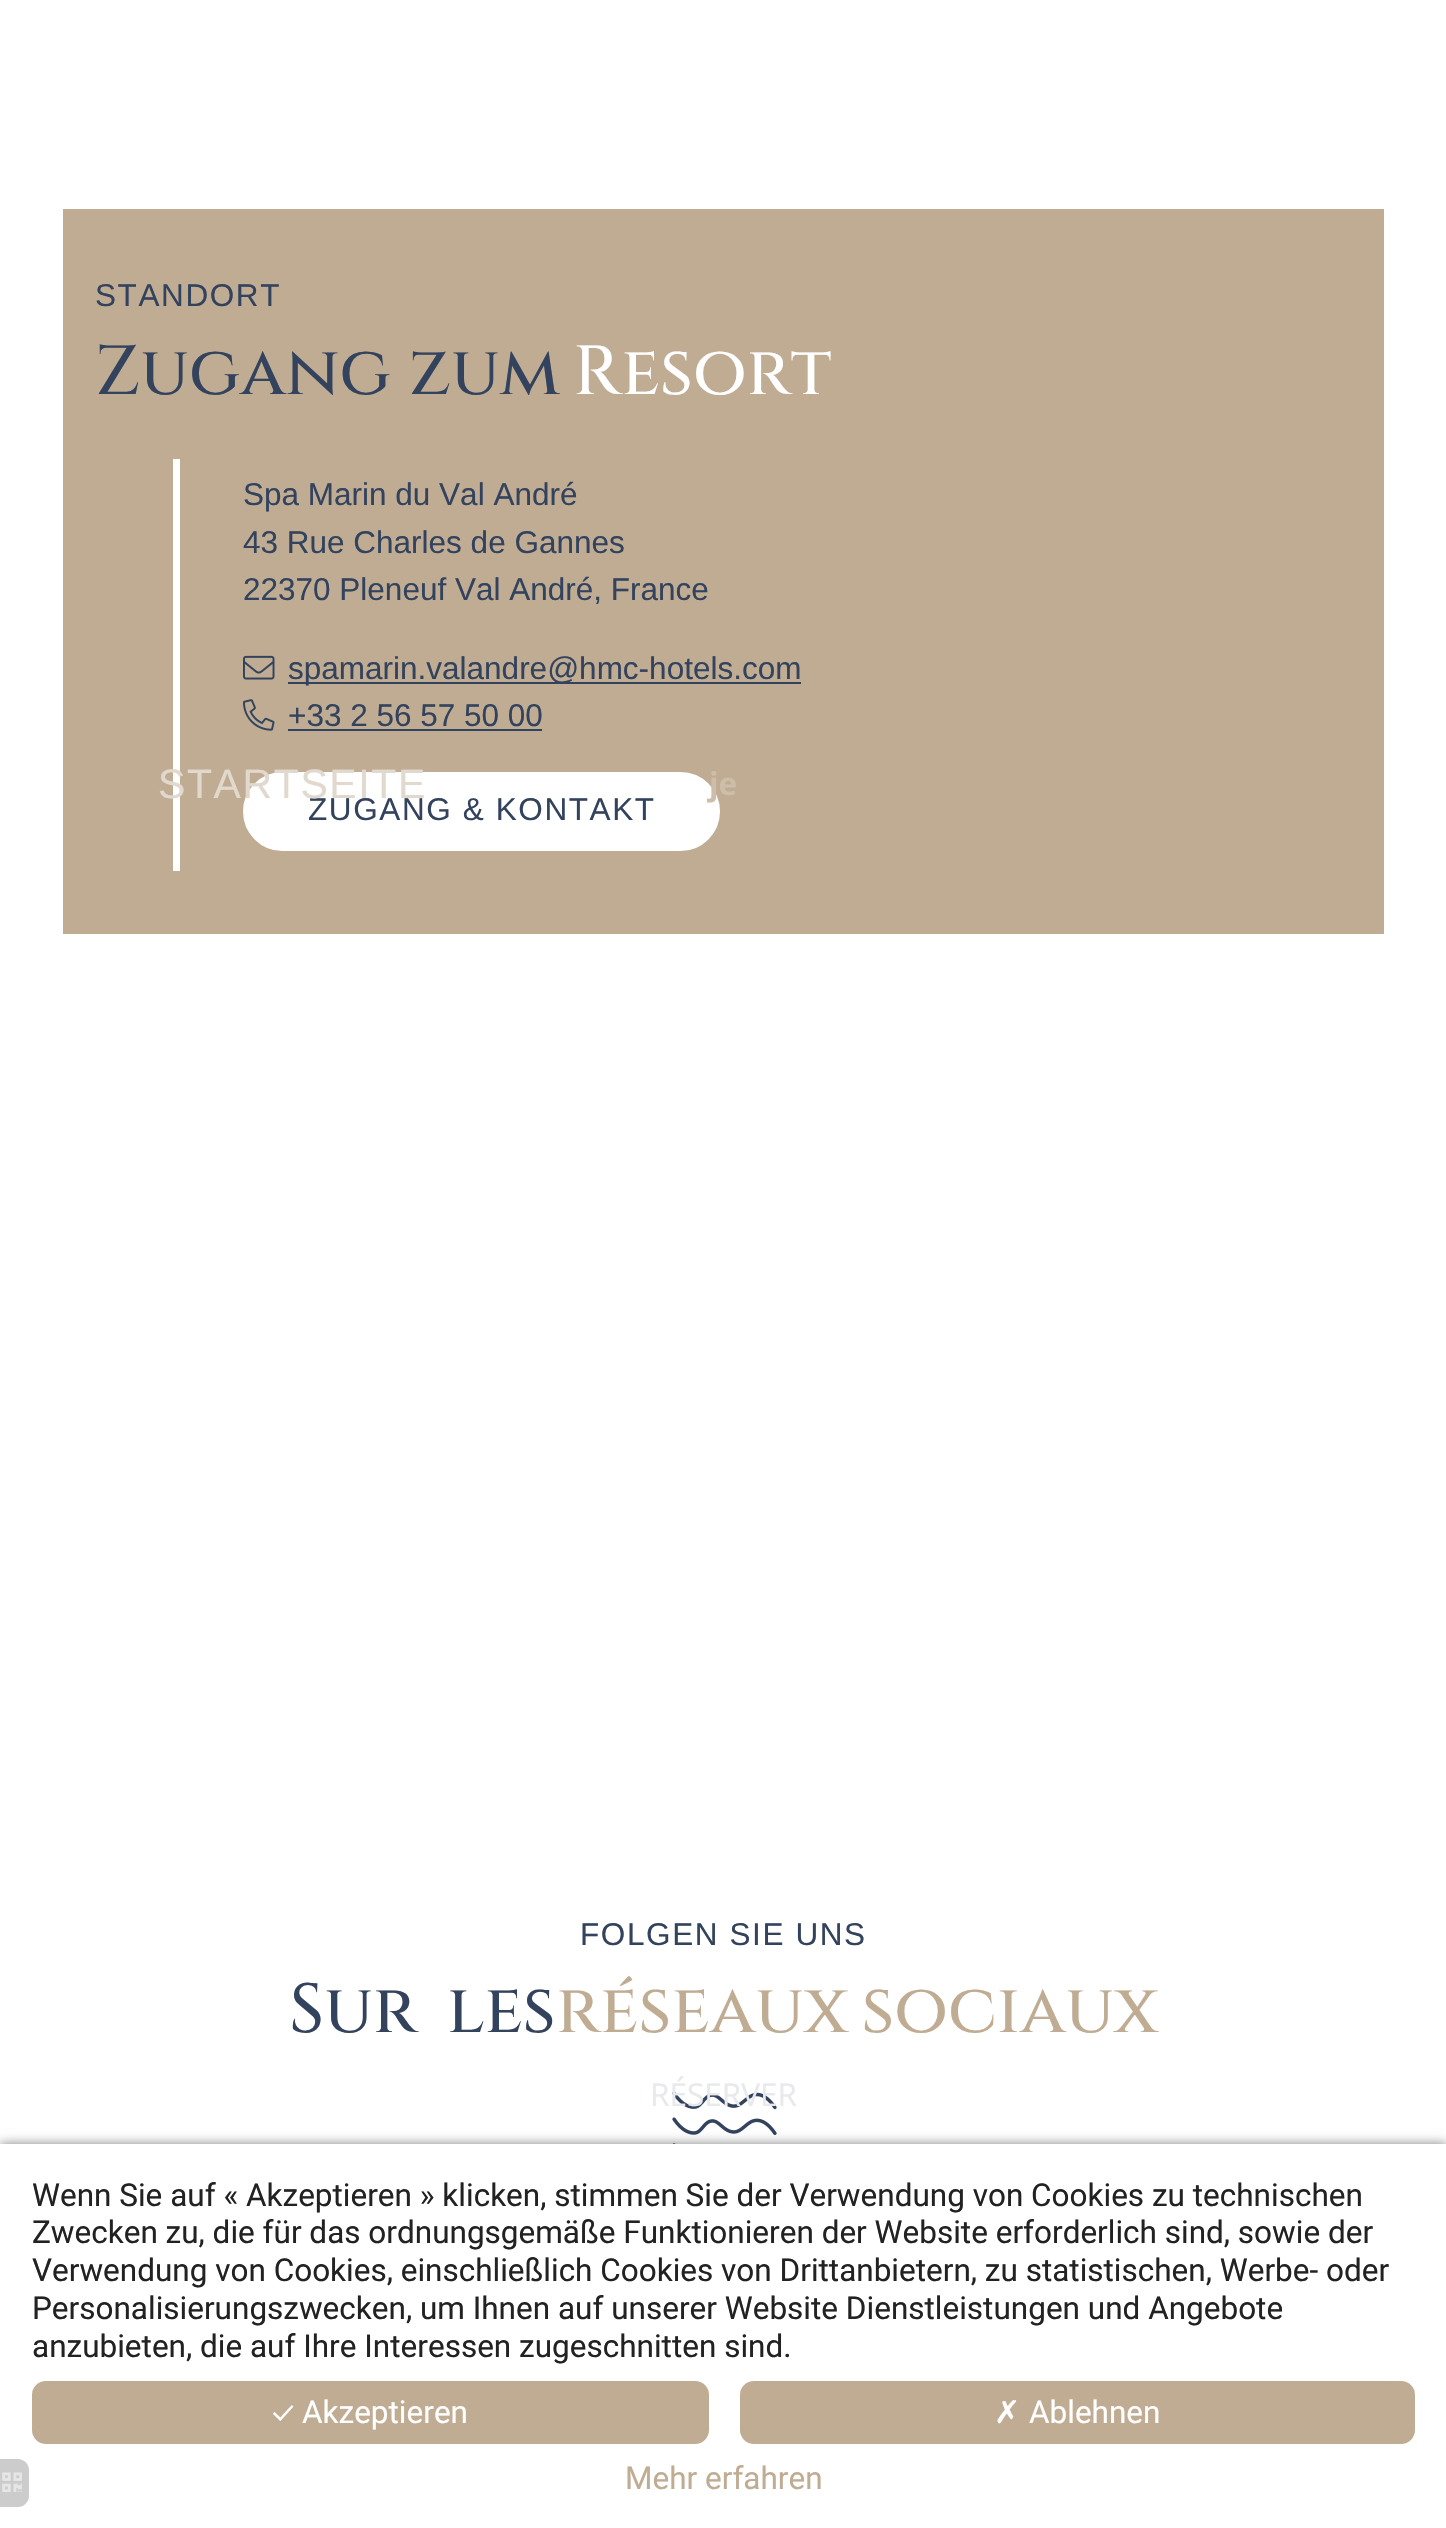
void draw(SkCanvas* canvas) {
	SkPaint paint;
	paint.setAntiAlias(true);
	auto spacedText = [&](const char* s, float x, float y, const SkFont& font, const SkPaint& ink, float letter, float word) {
		std::vector<SkGlyphID> glyphs(font.countText(s, strlen(s), SkTextEncoding::kUTF8));
		std::vector<float> xs(glyphs.size());
		font.textToGlyphs(s, strlen(s), SkTextEncoding::kUTF8, glyphs);
		font.getXPos(glyphs, xs, x);
		float extra = 0;
		for (size_t i = 0; i < glyphs.size(); i++) {
			xs[i] += extra;
			extra += letter + word * (glyphs[i] == font.unicharToGlyph(' '));
		}
		canvas->drawTextBlob(SkTextBlob::MakeFromPosHGlyphs(glyphs, xs, y, font), 0, 0, ink);
	};
	auto svgPath = [&](const char* data, bool evenOdd = false) {
		SkPath result = *SkParsePath::FromSVGString(data);
		if (evenOdd) result.setFillType(SkPathFillType::kEvenOdd);
		return result;
	};
	canvas->clear(0xffffffff);
	paint.setColor(0xffc0ac93);
	canvas->drawRect(SkRect::MakeXYWH(63, 209, 1321, 725), paint);
	SkFont f1(fontMgr->matchFamilyStyle("Liberation Sans", SkFontStyle::Normal()), 31.5);
	f1.setSubpixel(true);
	paint.setColor(0xff33435d);
	spacedText("STANDORT", 95, 306, f1, paint, 1.6, 0);
	SkFont f2(fontMgr->matchFamilyStyle("Cinzel", SkFontStyle(500, SkFontStyle::kNormal_Width, SkFontStyle::kUpright_Slant)), 69.25);
	f2.setSubpixel(true);
	spacedText("Zugang zum", 95, 394, f2, paint, 0, 1);
	paint.setColor(0xffffffff);
	canvas->drawString("Resort", 573, 394, f2, paint);
	canvas->drawRect(SkRect::MakeXYWH(173, 459, 7, 412), paint);
	paint.setColor(0xff33435d);
	canvas->drawString("Spa Marin du Val André", 243, 505, f1, paint);
	canvas->drawString("43 Rue Charles de Gannes", 243, 553, f1, paint);
	canvas->drawString("22370 Pleneuf Val André, France", 243, 600, f1, paint);
	canvas->drawImageRect(SkImages::DeferredFromEncodedData(SkData::MakeFromFileName("img1.png")), SkRect::MakeXYWH(243, 655, 32, 25), SkSamplingOptions());
	canvas->drawRect(SkRect::MakeXYWH(288, 682, 513, 2), paint);
	canvas->drawString("spamarin.valandre@hmc-hotels.com", 288, 679, f1, paint);
	canvas->drawImageRect(SkImages::DeferredFromEncodedData(SkData::MakeFromFileName("img2.png")), SkRect::MakeXYWH(243, 699, 32, 32), SkSamplingOptions());
	canvas->drawString("+33 2 56 57 50 00", 288, 726, f1, paint);
	canvas->drawRect(SkRect::MakeXYWH(288, 729, 254, 2), paint);
	paint.setColor(0xffffffff);
	canvas->drawRoundRect(SkRect::MakeXYWH(244, 773, 475, 77), 38.5, 38.5, paint);
	paint.setStroke(true);
	paint.setStrokeWidth(2);
	canvas->drawRoundRect(SkRect::MakeXYWH(244, 773, 475, 77), 38.5, 38.5, paint);
	paint.setStroke(false);
	paint.setColor(0xff33435d);
	spacedText("ZUGANG & KONTAKT", 308, 820, f1, paint, 1.6, 0);
	spacedText("FOLGEN SIE UNS", 580, 1945, f1, paint, 1.6, 0);
	canvas->drawString("Sur", 289, 2032, f2, paint);
	canvas->drawString("les", 447, 2032, f2, paint);
	paint.setColor(0xffc0ac93);
	spacedText("réseaux sociaux", 556, 2032, f2, paint, 0, -4);
	canvas->drawImageRect(SkImages::DeferredFromEncodedData(SkData::MakeFromFileName("img3.png")), SkRect::MakeXYWH(672, 2091, 105, 53), SkSamplingOptions());
	SkFont f3(fontMgr->matchFamilyStyle("Liberation Sans", SkFontStyle::Normal()), 41);
	f3.setSubpixel(true);
	paint.setColor(0xffe2d9ce);
	spacedText("STARTSEITE", 158, 798, f3, paint, 1.6, 0);
	SkFont f4(fontMgr->matchFamilyStyle("Open Sans", SkFontStyle::Bold()), 31.5);
	f4.setSubpixel(true);
	paint.setColor(0xffcdbda9);
	canvas->drawString("je", 709, 795, f4, paint);
	SkFont f5(fontMgr->matchFamilyStyle("Open Sans", SkFontStyle::Normal()), 31.5);
	f5.setSubpixel(true);
	paint.setColor(0xffe7e9ec);
	canvas->drawString("RÉSERVER", 650, 2106, f5, paint);
	paint.setColor(0x80000000);
	paint.setMaskFilter(SkMaskFilter::MakeBlur(kNormal_SkBlurStyle, 5.5));
	canvas->drawRect(SkRect::MakeXYWH(0, 2144, 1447, 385), paint);
	paint.setMaskFilter(nullptr);
	paint.setColor(0xffffffff);
	canvas->drawRect(SkRect::MakeXYWH(0, 2144, 1446, 384), paint);
	paint.setColor(0xffcccccc);
	canvas->drawPath(svgPath("M0 2459H18C24 2459 29 2464 29 2470V2496C29 2502 24 2507 18 2507H0Z"), paint);
	canvas->drawImageRect(SkImages::DeferredFromEncodedData(SkData::MakeFromFileName("img4.png")), SkRect::MakeXYWH(2, 2472, 20, 20), SkSamplingOptions());
	SkFont f6(fontMgr->matchFamilyStyle("Roboto", SkFontStyle::Normal()), 31.5);
	f6.setSubpixel(true);
	paint.setColor(0xff222222);
	canvas->drawString("Wenn Sie auf « Akzeptieren » klicken, stimmen Sie der Verwendung von Cookies zu technischen", 32, 2206, f6, paint);
	canvas->drawString("Zwecken zu, die für das ordnungsgemäße Funktionieren der Website erforderlich sind, sowie der", 32, 2243, f6, paint);
	canvas->drawString("Verwendung von Cookies, einschließlich Cookies von Drittanbietern, zu statistischen, Werbe- oder", 32, 2281, f6, paint);
	canvas->drawString("Personalisierungszwecken, um Ihnen auf unserer Website Dienstleistungen und Angebote", 32, 2319, f6, paint);
	canvas->drawString("anzubieten, die auf Ihre Interessen zugeschnitten sind.", 32, 2357, f6, paint);
	paint.setColor(0xffc0ac93);
	canvas->drawRoundRect(SkRect::MakeXYWH(32, 2381, 677, 63), 14, 14, paint);
	SkFont f7(fontMgr->matchFamilyStyle("Ubuntu", SkFontStyle::Normal()), 31.5);
	f7.setSubpixel(true);
	paint.setColor(0xffffffff);
	canvas->drawString("✓", 272, 2423, f7, paint);
	canvas->drawString("Akzeptieren", 302, 2423, f6, paint);
	paint.setColor(0xffc0ac93);
	canvas->drawRoundRect(SkRect::MakeXYWH(740, 2381, 675, 63), 14, 14, paint);
	SkFont f8(fontMgr->matchFamilyStyle("DejaVu Sans", SkFontStyle::Normal()), 31.5);
	f8.setSubpixel(true);
	paint.setColor(0xffffffff);
	canvas->drawString("✗", 994, 2423, f8, paint);
	canvas->drawString("Ablehnen", 1029, 2423, f6, paint);
	paint.setColor(0xffc0ac93);
	canvas->drawString("Mehr erfahren", 625, 2489, f6, paint);
}
